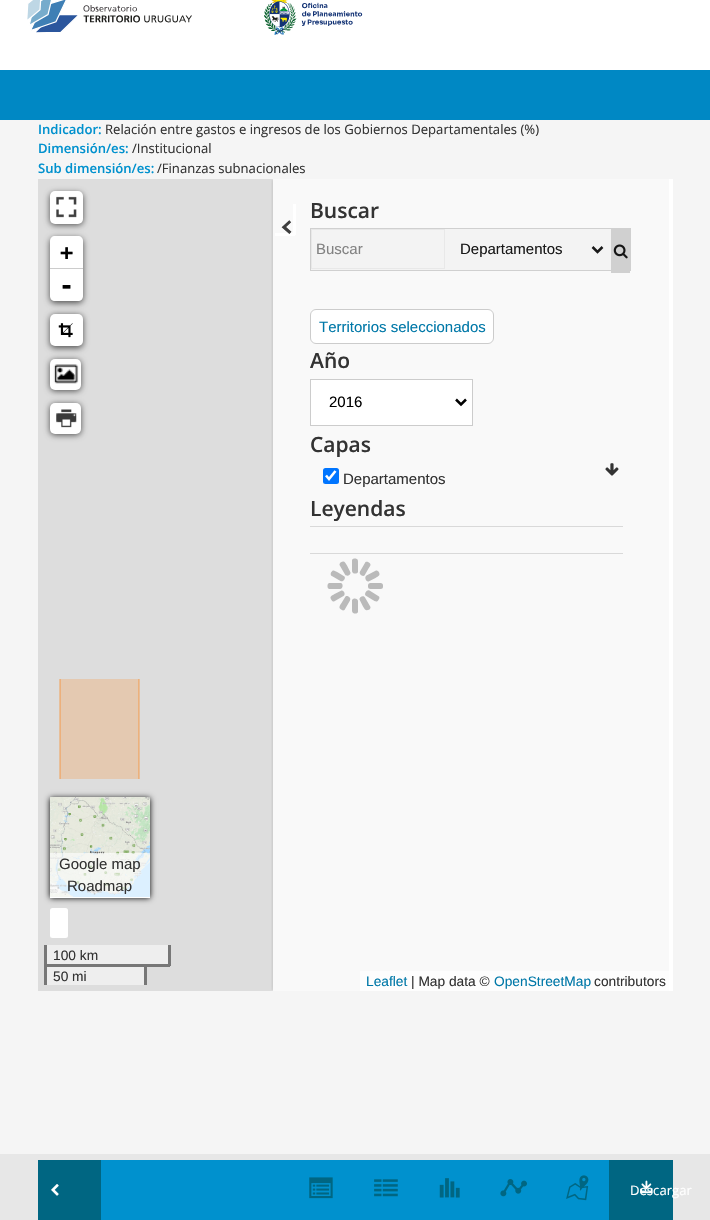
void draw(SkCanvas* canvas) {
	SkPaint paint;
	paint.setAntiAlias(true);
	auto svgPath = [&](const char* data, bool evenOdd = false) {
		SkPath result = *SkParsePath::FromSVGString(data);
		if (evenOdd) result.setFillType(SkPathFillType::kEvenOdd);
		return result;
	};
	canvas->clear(0xffffffff);
	canvas->drawImageRect(SkImages::DeferredFromEncodedData(SkData::MakeFromFileName("img1.png")), SkRect::MakeXYWH(27, 0, 336, 35), SkSamplingOptions());
	paint.setColor(0xff0088c4);
	canvas->drawRect(SkRect::MakeXYWH(0, 70, 710, 50), paint);
	paint.setColor(0xfff5f5f5);
	canvas->drawRect(SkRect::MakeXYWH(0, 120, 710, 1034), paint);
	SkFont f1(fontMgr->matchFamilyStyle("Open Sans", SkFontStyle(600, SkFontStyle::kNormal_Width, SkFontStyle::kUpright_Slant)), 13.1);
	f1.setSubpixel(true);
	paint.setColor(0xff0091ce);
	canvas->drawString("Indicador:", 38, 134, f1, paint);
	SkFont f2(fontMgr->matchFamilyStyle("Open Sans", SkFontStyle::Normal()), 13.1);
	f2.setSubpixel(true);
	paint.setColor(0xff333333);
	canvas->drawString("Relación entre gastos e ingresos de los Gobiernos Departamentales (%)", 105, 134, f2, paint);
	paint.setColor(0xff0091ce);
	canvas->drawString("Dimensión/es:", 38, 153, f1, paint);
	paint.setColor(0xff333333);
	canvas->drawString("/Institucional", 132, 153, f2, paint);
	paint.setColor(0xff0091ce);
	canvas->drawString("Sub dimensión/es:", 38, 173, f1, paint);
	paint.setColor(0xff333333);
	canvas->drawString("/Finanzas subnacionales", 157, 173, f2, paint);
	paint.setColor(0xffdddddd);
	canvas->drawRect(SkRect::MakeXYWH(38, 179, 631, 812), paint);
	paint.setColor(0xffeeeeee);
	canvas->drawRect(SkRect::MakeXYWH(47, 967, 97, 18), paint);
	canvas->save();
	canvas->clipRect(SkRect::MakeXYWH(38, 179, 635, 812));
	canvas->clipRect(SkRect::MakeXYWH(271, 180, 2, 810));
	paint.setColor(0x40000000);
	paint.setMaskFilter(SkMaskFilter::MakeBlur(kNormal_SkBlurStyle, 2));
	canvas->drawRect(SkRect::MakeXYWH(274, 179, 400, 812), paint);
	paint.setMaskFilter(nullptr);
	canvas->restore();
	paint.setColor(0xccffffff);
	canvas->drawRect(SkRect::MakeXYWH(273, 179, 396, 812), paint);
	paint.setColor(0xffffffff);
	canvas->drawRect(SkRect::MakeXYWH(669, 179, 4, 812), paint);
	SkFont f3(fontMgr->matchFamilyStyle("Open Sans", SkFontStyle(600, SkFontStyle::kNormal_Width, SkFontStyle::kUpright_Slant)), 21);
	f3.setSubpixel(true);
	paint.setColor(0xff333333);
	canvas->drawString("Buscar", 310, 218, f3, paint);
	paint.setColor(0xffffffff);
	canvas->drawRect(SkRect::MakeXYWH(293, 204, 3, 31), paint);
	canvas->drawRect(SkRect::MakeXYWH(275, 233, 20, 3), paint);
	SkFont f4(fontMgr->matchFamilyStyle("Acme", SkFontStyle::Normal()), 31);
	f4.setSubpixel(true);
	paint.setColor(0xff3e3e3e);
	canvas->drawString("<", 281, 235, f4, paint);
	paint.setColor(0xfff3f3f3);
	canvas->drawRect(SkRect::MakeXYWH(311, 229, 300, 41), paint);
	paint.setStroke(true);
	paint.setStrokeWidth(1);
	paint.setColor(0xffd0d0d0);
	canvas->drawRect(SkRect::MakeXYWH(310.5, 228.5, 320, 42), paint);
	paint.setColor(0xffe8e8e8);
	canvas->drawRect(SkRect::MakeXYWH(311.5, 229.5, 133, 39), paint);
	SkFont f5(fontMgr->matchFamilyStyle("Liberation Sans", SkFontStyle::Normal()), 15);
	f5.setSubpixel(true);
	paint.setStroke(false);
	paint.setColor(0xff828282);
	canvas->drawString("Buscar", 316, 254, f5, paint);
	paint.setStroke(true);
	paint.setStrokeWidth(2.5);
	paint.setColor(0xff191919);
	canvas->drawPath(svgPath("M592.5 247L597.5 252L602.5 247"), paint);
	paint.setStroke(false);
	canvas->drawString("Departamentos", 460, 254, f5, paint);
	paint.setColor(0xffd0d0d0);
	canvas->drawRect(SkRect::MakeXYWH(611, 229, 19, 44), paint);
	canvas->drawImageRect(SkImages::DeferredFromEncodedData(SkData::MakeFromFileName("img2.png")), SkRect::MakeXYWH(613, 244, 15, 15), SkSamplingOptions());
	paint.setColor(0xffffffff);
	canvas->drawRoundRect(SkRect::MakeXYWH(310.5, 309.5, 183, 34), 5.5, 5.5, paint);
	paint.setStroke(true);
	paint.setStrokeWidth(1);
	paint.setColor(0xffcccccc);
	canvas->drawRoundRect(SkRect::MakeXYWH(310.5, 309.5, 183, 34), 5.5, 5.5, paint);
	paint.setStroke(false);
	paint.setColor(0xff0078a8);
	canvas->drawString("Territorios seleccionados", 319, 332, f5, paint);
	paint.setColor(0xff333333);
	canvas->drawString("Año", 310, 368, f3, paint);
	paint.setColor(0xffffffff);
	canvas->drawRect(SkRect::MakeXYWH(310.5, 379.5, 162, 46), paint);
	paint.setStroke(true);
	paint.setColor(0xffcccccc);
	canvas->drawRect(SkRect::MakeXYWH(310.5, 379.5, 162, 46), paint);
	paint.setStrokeWidth(2.5);
	paint.setColor(0xff000000);
	canvas->drawPath(svgPath("M456 399.5L461 404.5L466 399.5"), paint);
	paint.setStroke(false);
	canvas->drawString("2016", 329, 407, f5, paint);
	paint.setColor(0xff333333);
	canvas->drawString("Capas", 310, 452, f3, paint);
	paint.setColor(0xff0075ff);
	canvas->drawRoundRect(SkRect::MakeXYWH(323, 468, 16, 16), 2.5, 2.5, paint);
	paint.setStroke(true);
	paint.setStrokeWidth(2.6);
	paint.setColor(0xffffffff);
	canvas->drawPath(svgPath("M326 475.5L329 479L335.5 471"), paint);
	paint.setStroke(false);
	paint.setColor(0xff333333);
	canvas->drawString("Departamentos", 343, 484, f5, paint);
	canvas->drawImageRect(SkImages::DeferredFromEncodedData(SkData::MakeFromFileName("img3.png")), SkRect::MakeXYWH(605, 463, 14, 13), SkSamplingOptions());
	canvas->drawString("Leyendas", 310, 516, f3, paint);
	paint.setColor(0xffd9d9d9);
	canvas->drawRect(SkRect::MakeXYWH(310, 526, 313, 1), paint);
	canvas->drawRect(SkRect::MakeXYWH(310, 553, 313, 1), paint);
	paint.setColor(0xa6000000);
	paint.setMaskFilter(SkMaskFilter::MakeBlur(kNormal_SkBlurStyle, 3));
	canvas->drawRoundRect(SkRect::MakeXYWH(50, 193, 33, 32), 5, 5, paint);
	paint.setMaskFilter(nullptr);
	paint.setColor(0xffffffff);
	canvas->drawRoundRect(SkRect::MakeXYWH(50, 191, 33, 33), 5, 5, paint);
	canvas->drawImageRect(SkImages::DeferredFromEncodedData(SkData::MakeFromFileName("img4.png")), SkRect::MakeXYWH(56, 196, 21, 22), SkSamplingOptions());
	paint.setColor(0xa6000000);
	paint.setMaskFilter(SkMaskFilter::MakeBlur(kNormal_SkBlurStyle, 3));
	canvas->drawRoundRect(SkRect::MakeXYWH(50, 238, 33, 65), 5, 5, paint);
	paint.setMaskFilter(nullptr);
	paint.setColor(0xffffffff);
	canvas->drawPath(svgPath("M55 236H78C81 236 83 238 83 241V269H50V241C50 238 52 236 55 236Z"), paint);
	paint.setColor(0xffcccccc);
	canvas->drawRect(SkRect::MakeXYWH(50, 268, 33, 1), paint);
	SkFont f6(fontMgr->matchFamilyStyle("DejaVu Sans Mono", SkFontStyle::Bold()), 22);
	f6.setSubpixel(true);
	paint.setColor(0xff000000);
	canvas->drawString("+", 60, 260, f6, paint);
	paint.setColor(0xffffffff);
	canvas->drawPath(svgPath("M50 269H83V296C83 299 81 301 78 301H55C52 301 50 299 50 296Z"), paint);
	SkFont f7(fontMgr->matchFamilyStyle("DejaVu Sans Mono", SkFontStyle::Bold()), 25);
	f7.setSubpixel(true);
	paint.setColor(0xff000000);
	canvas->drawString("-", 59, 294, f7, paint);
	paint.setColor(0xa6000000);
	paint.setMaskFilter(SkMaskFilter::MakeBlur(kNormal_SkBlurStyle, 3));
	canvas->drawRoundRect(SkRect::MakeXYWH(50, 315, 33, 33), 5, 5, paint);
	paint.setMaskFilter(nullptr);
	paint.setColor(0xffffffff);
	canvas->drawRoundRect(SkRect::MakeXYWH(50, 314, 33, 32), 5, 5, paint);
	canvas->drawImageRect(SkImages::DeferredFromEncodedData(SkData::MakeFromFileName("img5.png")), SkRect::MakeXYWH(58, 323, 15, 15), SkSamplingOptions());
	paint.setColor(0xa6000000);
	paint.setMaskFilter(SkMaskFilter::MakeBlur(kNormal_SkBlurStyle, 3));
	canvas->drawRoundRect(SkRect::MakeXYWH(50, 360, 31, 31), 5, 5, paint);
	paint.setMaskFilter(nullptr);
	paint.setColor(0xffffffff);
	canvas->drawRoundRect(SkRect::MakeXYWH(50, 359, 31, 31), 5, 5, paint);
	canvas->drawImageRect(SkImages::DeferredFromEncodedData(SkData::MakeFromFileName("img6.png")), SkRect::MakeXYWH(53, 364, 26, 20), SkSamplingOptions());
	paint.setColor(0xa6000000);
	paint.setMaskFilter(SkMaskFilter::MakeBlur(kNormal_SkBlurStyle, 3));
	canvas->drawRoundRect(SkRect::MakeXYWH(50, 404, 31, 31), 5, 5, paint);
	paint.setMaskFilter(nullptr);
	paint.setColor(0xffffffff);
	canvas->drawRoundRect(SkRect::MakeXYWH(50, 403, 31, 31), 5, 5, paint);
	canvas->drawImageRect(SkImages::DeferredFromEncodedData(SkData::MakeFromFileName("img7.png")), SkRect::MakeXYWH(56, 409, 21, 19), SkSamplingOptions());
	paint.setColor(0xffe4c9b1);
	canvas->drawRect(SkRect::MakeXYWH(60, 679, 79, 100), paint);
	canvas->save();
	canvas->clipRect(SkRect::MakeXYWH(50, 679, 100, 100));
	paint.setStroke(true);
	paint.setStrokeWidth(1.2);
	paint.setStrokeCap(SkPaint::kRound_Cap);
	paint.setStrokeJoin(SkPaint::kRound_Join);
	paint.setColor(0x80ff7800);
	canvas->drawPath(svgPath("M60 780V677.5H139V780Z"), paint);
	canvas->restore();
	paint.setStroke(false);
	paint.setColor(0xff000000);
	paint.setMaskFilter(SkMaskFilter::MakeBlur(kNormal_SkBlurStyle, 3));
	canvas->drawRect(SkRect::MakeXYWH(50, 798, 100, 100), paint);
	paint.setMaskFilter(nullptr);
	paint.setColor(0xffffffff);
	canvas->drawRect(SkRect::MakeXYWH(50, 897, 100, 1), paint);
	canvas->drawImageRect(SkImages::DeferredFromEncodedData(SkData::MakeFromFileName("img8.png")), SkRect::MakeXYWH(50, 797, 100, 100), SkSamplingOptions());
	paint.setColor(0x99ffffff);
	canvas->drawRect(SkRect::MakeXYWH(50, 853, 100, 44), paint);
	paint.setColor(0xff333333);
	canvas->drawString("Google map", 59, 869, f5, paint);
	canvas->drawString("Roadmap", 67, 891, f5, paint);
	paint.setColor(0xffffffff);
	canvas->drawRoundRect(SkRect::MakeXYWH(50, 908, 18, 30), 2.5, 2.5, paint);
	paint.setColor(0xffeeeeee);
	canvas->drawRect(SkRect::MakeXYWH(47, 945, 121, 19), paint);
	paint.setColor(0xff777777);
	canvas->drawRect(SkRect::MakeXYWH(168, 945, 3, 21), paint);
	canvas->drawRect(SkRect::MakeXYWH(147, 964, 23, 3), paint);
	canvas->drawRect(SkRect::MakeXYWH(44, 945, 3, 21), paint);
	SkFont f8(fontMgr->matchFamilyStyle("Liberation Sans", SkFontStyle::Normal()), 13.75);
	f8.setSubpixel(true);
	paint.setColor(0xff333333);
	canvas->drawString("100 km", 53, 960, f8, paint);
	paint.setColor(0xff777777);
	canvas->drawRect(SkRect::MakeXYWH(44, 964, 102, 3), paint);
	canvas->drawRect(SkRect::MakeXYWH(144, 964, 3, 21), paint);
	canvas->drawRect(SkRect::MakeXYWH(44, 964, 3, 21), paint);
	paint.setColor(0xff333333);
	canvas->drawString("50 mi", 53, 981, f8, paint);
	paint.setColor(0xb3ffffff);
	canvas->drawRect(SkRect::MakeXYWH(360, 971, 309, 20), paint);
	paint.setColor(0xff0078a8);
	canvas->drawString("Leaflet", 366, 986, f8, paint);
	paint.setColor(0xff333333);
	canvas->drawString("| Map data ©", 411, 986, f8, paint);
	paint.setColor(0xff0078a8);
	canvas->drawString("OpenStreetMap", 494, 986, f8, paint);
	paint.setColor(0xff333333);
	canvas->drawString("contributors", 594, 986, f8, paint);
	paint.setColor(0xffbababa);
	canvas->drawPath(svgPath("M369.5 590.5L379 596.5C379.5 597 379.5 598.5 379 599C377 603 375.5 601.5 372 599.5L365.5 595.5C364 593.5 367 589 369.5 590.5Z"), paint);
	canvas->drawPath(svgPath("M365 597.5L370.5 607C370.5 608 370 609 369.5 609.5C365.5 611.5 365 609.5 363 606.5L359.5 599.5C359 597 363.5 595 365 597.5ZM358 601V612C357.5 613 356.5 613.5 355.5 613.5C351.5 613.5 352 611 352 607.5V600C353 597.5 358 598 358 601ZM350 600.5L344.5 610C343.5 610.5 342.5 610.5 342 610C338 608 339.5 606 341.5 603L345.5 596.5C347.5 595 351.5 598 350 600.5Z"), paint);
	canvas->drawPath(svgPath("M343.5 596L334 601.5C333 601.5 332 601 331.5 600C329 596.5 331.5 596 334.5 594L341.5 590.5C344 590 346 594.5 343.5 596ZM340 589H329C328 588.5 327.5 587.5 327.5 586.5C327.5 582 329.5 583 333.5 583H341C343.5 584 343 589 340 589ZM340.5 581L331 575.5C330.5 574.5 330.5 573.5 331 572.5C333 569 334.5 570.5 338 572.5L344.5 576.5C346 578.5 343 582.5 340.5 581Z"), paint);
	canvas->drawPath(svgPath("M345 574.5L339.5 565C339.5 564 340 563 340.5 562.5C344.5 560 345 562.5 347 565.5L350.5 572.5C351 575 346.5 577 345 574.5Z"), paint);
	paint.setColor(0x40000000);
	canvas->drawPath(svgPath("M352 571V560C352.5 559 353.5 558.5 354.5 558.5C358.5 558.5 358 560.5 358 564.5V572C357 574.5 352 574 352 571ZM360 571.5L365.5 562C366.5 561.5 367.5 561.5 368 562C372 564 370.5 565.5 368.5 568.5L364.5 575.5C362.5 577 358.5 574 360 571.5Z"), paint);
	paint.setColor(0xffbababa);
	canvas->drawPath(svgPath("M366.5 575.5L376 570.5C377 570.5 378 571 378.5 571.5C381 575.5 378.5 576 375.5 578L368.5 581.5C366 582 364 577 366.5 575.5Z"), paint);
	canvas->drawRoundRect(SkRect::MakeXYWH(368, 583, 15, 6), 2.5, 2.5, paint);
	paint.setColor(0xffe7e7e7);
	canvas->drawRect(SkRect::MakeXYWH(0, 1154, 710, 66), paint);
	paint.setColor(0xff0091ce);
	canvas->drawRect(SkRect::MakeXYWH(101, 1160, 508, 60), paint);
	paint.setColor(0xff006682);
	canvas->drawRect(SkRect::MakeXYWH(38, 1160, 63, 60), paint);
	canvas->drawImageRect(SkImages::DeferredFromEncodedData(SkData::MakeFromFileName("img9.png")), SkRect::MakeXYWH(51, 1184, 8, 12), SkSamplingOptions());
	canvas->drawImageRect(SkImages::DeferredFromEncodedData(SkData::MakeFromFileName("img10.png")), SkRect::MakeXYWH(309, 1177, 24, 22), SkSamplingOptions());
	canvas->drawImageRect(SkImages::DeferredFromEncodedData(SkData::MakeFromFileName("img11.png")), SkRect::MakeXYWH(374, 1179, 24, 18), SkSamplingOptions());
	canvas->drawImageRect(SkImages::DeferredFromEncodedData(SkData::MakeFromFileName("img12.png")), SkRect::MakeXYWH(439, 1178, 21, 20), SkSamplingOptions());
	canvas->drawImageRect(SkImages::DeferredFromEncodedData(SkData::MakeFromFileName("img13.png")), SkRect::MakeXYWH(500, 1179, 27, 18), SkSamplingOptions());
	canvas->drawImageRect(SkImages::DeferredFromEncodedData(SkData::MakeFromFileName("img14.png")), SkRect::MakeXYWH(566, 1175, 23, 26), SkSamplingOptions());
	canvas->drawRect(SkRect::MakeXYWH(609, 1160, 64, 60), paint);
	paint.setColor(0xffffffff);
	canvas->drawString("Descargar", 630, 1195, f2, paint);
	canvas->drawImageRect(SkImages::DeferredFromEncodedData(SkData::MakeFromFileName("img15.png")), SkRect::MakeXYWH(640, 1180, 13, 14), SkSamplingOptions());
}
